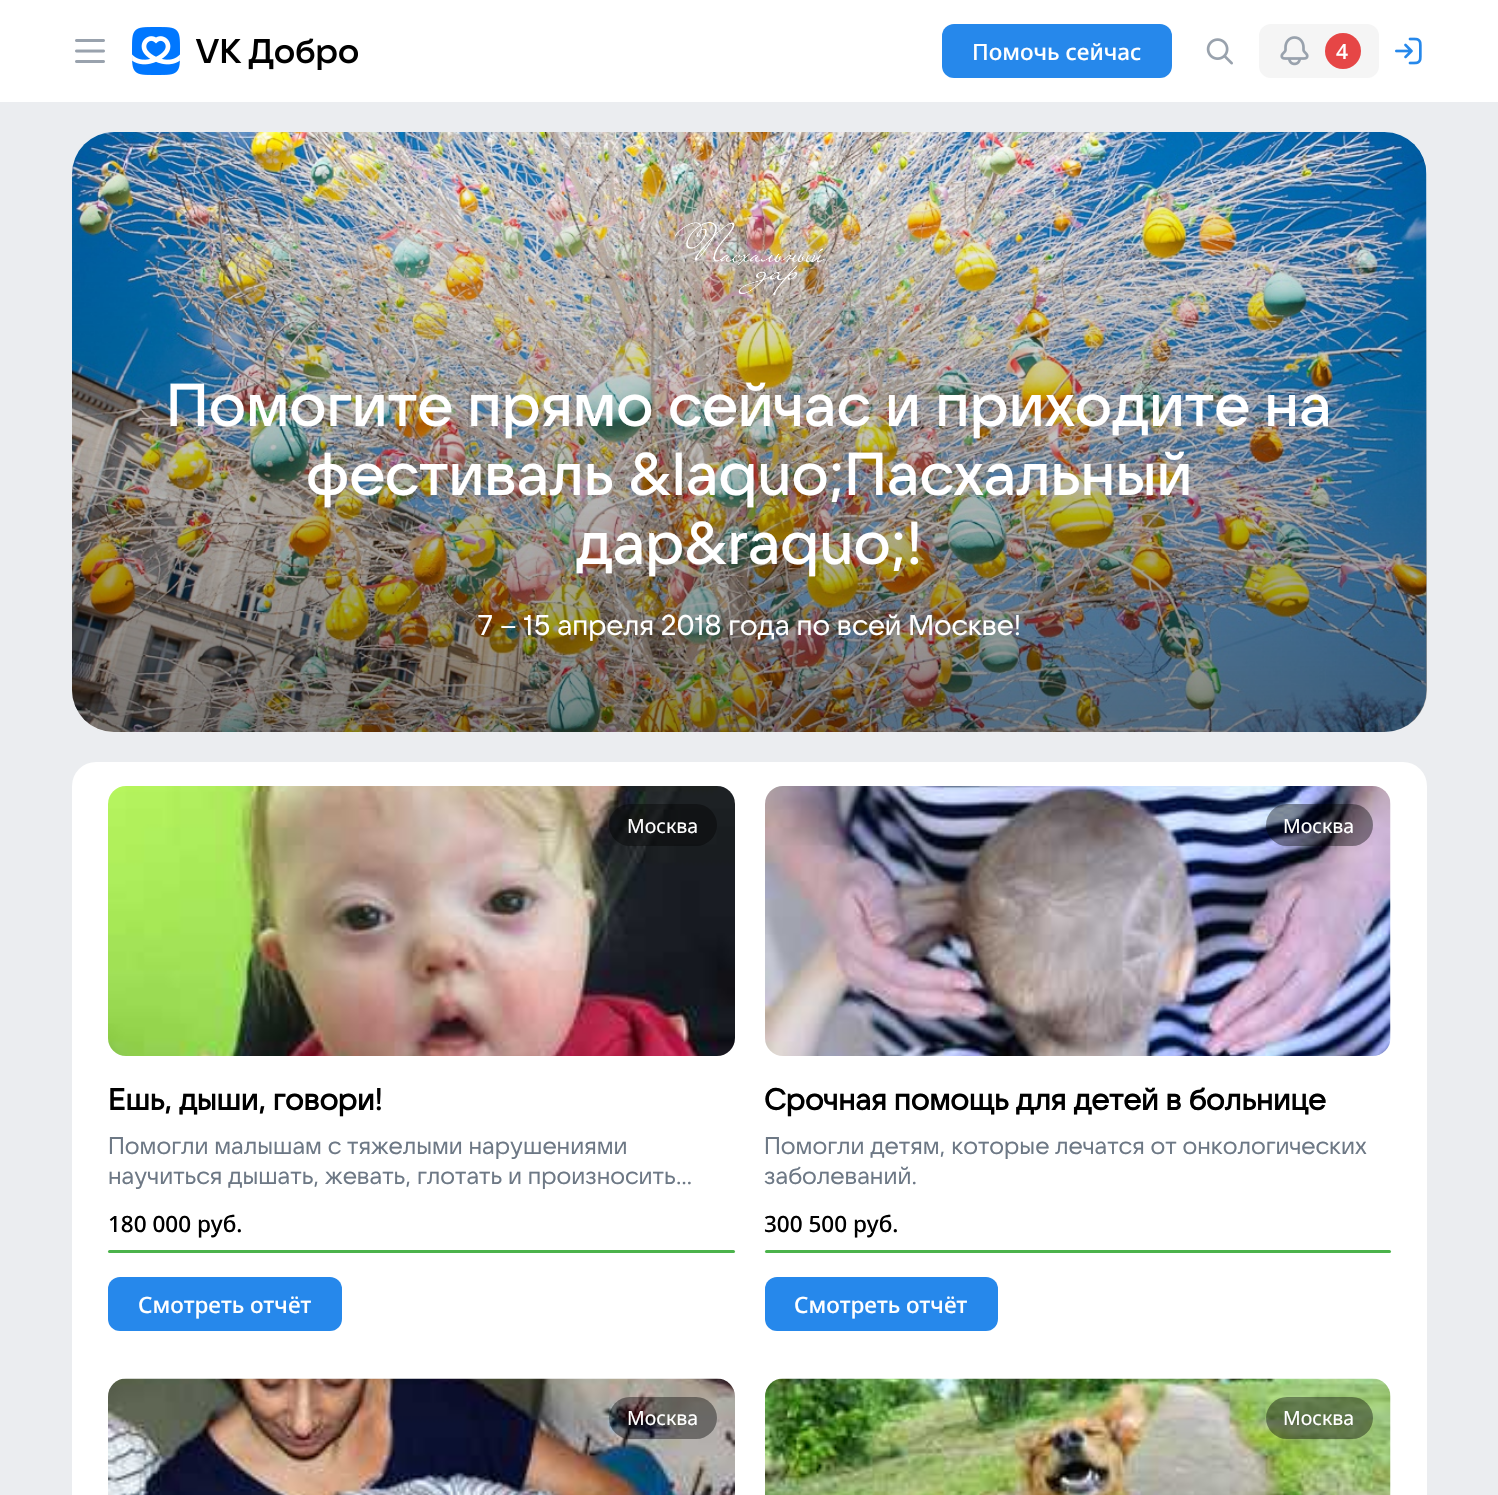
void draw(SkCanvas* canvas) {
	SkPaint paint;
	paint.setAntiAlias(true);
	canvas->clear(0xffebedf0);
	paint.setColor(0xffffffff);
	canvas->drawRect(SkRect::MakeXYWH(0, 0, 1498, 102), paint);
	canvas->drawImageRect(SkImages::DeferredFromEncodedData(SkData::MakeFromFileName("img1.png")), SkRect::MakeXYWH(75, 39, 30, 24), SkSamplingOptions());
	canvas->drawImageRect(SkImages::DeferredFromEncodedData(SkData::MakeFromFileName("img2.png")), SkRect::MakeXYWH(132, 27, 226, 48), SkSamplingOptions());
	paint.setColor(0xff2688eb);
	canvas->drawRoundRect(SkRect::MakeXYWH(942, 24, 230, 54), 12, 12, paint);
	SkFont f1(fontMgr->matchFamilyStyle("Noto Sans", SkFontStyle(500, SkFontStyle::kNormal_Width, SkFontStyle::kUpright_Slant)), 22.5);
	f1.setSubpixel(true);
	paint.setColor(0xffffffff);
	canvas->drawString("Помочь сейчас", 972, 60, f1, paint);
	canvas->drawImageRect(SkImages::DeferredFromEncodedData(SkData::MakeFromFileName("img3.png")), SkRect::MakeXYWH(1206, 38, 27, 27), SkSamplingOptions());
	paint.setColor(0xfff5f5f5);
	canvas->drawRoundRect(SkRect::MakeXYWH(1259, 24, 120, 54), 12, 12, paint);
	canvas->drawImageRect(SkImages::DeferredFromEncodedData(SkData::MakeFromFileName("img4.png")), SkRect::MakeXYWH(1280, 36, 29, 30), SkSamplingOptions());
	paint.setColor(0xffe64646);
	canvas->drawCircle(1343, 51, 18, paint);
	SkFont f2(fontMgr->matchFamilyStyle("Noto Sans", SkFontStyle(500, SkFontStyle::kNormal_Width, SkFontStyle::kUpright_Slant)), 21);
	f2.setSubpixel(true);
	paint.setColor(0xffffffff);
	canvas->drawString("4", 1336, 59, f2, paint);
	canvas->drawImageRect(SkImages::DeferredFromEncodedData(SkData::MakeFromFileName("img5.png")), SkRect::MakeXYWH(1395, 37, 27, 28), SkSamplingOptions());
	canvas->drawRoundRect(SkRect::MakeXYWH(72, 132, 1355, 600), 42, 42, paint);
	canvas->drawImageRect(SkImages::DeferredFromEncodedData(SkData::MakeFromFileName("img6.png")), SkRect::MakeXYWH(72, 132, 1355, 600), SkSamplingOptions());
	{
		const SkColor colors[] = {0x7a000000, 0x7a000000, 0x00000000};
		const float stops[] = {0, 0, 1};
		const SkPoint ends[] = {{749, 732}, {749, 132}};
		paint.setShader(SkGradientShader::MakeLinear(ends, colors, stops, 3, SkTileMode::kClamp));
		paint.setAlpha(255);
	}
	canvas->drawRoundRect(SkRect::MakeXYWH(72, 132, 1355, 600), 42, 42, paint);
	canvas->drawImageRect(SkImages::DeferredFromEncodedData(SkData::MakeFromFileName("img7.png")), SkRect::MakeXYWH(675, 222, 150, 74), SkSamplingOptions());
	SkFont f3(fontMgr->matchFamilyStyle("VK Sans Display", SkFontStyle(500, SkFontStyle::kNormal_Width, SkFontStyle::kUpright_Slant)), 60);
	f3.setSubpixel(true);
	paint.setShader(nullptr);
	paint.setColor(0xffffffff);
	canvas->drawString("Помогите прямо сейчас и приходите на", 166, 426, f3, paint);
	canvas->drawString("фестиваль &laquo;Пасхальный", 306, 495, f3, paint);
	canvas->drawString("дар&raquo;!", 576, 564, f3, paint);
	SkFont f4(fontMgr->matchFamilyStyle("VK Sans Display", SkFontStyle::Normal()), 28.5);
	f4.setSubpixel(true);
	canvas->drawString("7 – 15 апреля 2018 года по всей Москве!", 478, 635, f4, paint);
	canvas->drawRoundRect(SkRect::MakeXYWH(72, 762, 1355, 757), 24, 24, paint);
	canvas->drawImageRect(SkImages::DeferredFromEncodedData(SkData::MakeFromFileName("img8.png")), SkRect::MakeXYWH(108, 786, 627, 270), SkSamplingOptions());
	paint.setColor(0x66000000);
	canvas->drawRoundRect(SkRect::MakeXYWH(609, 804, 108, 42), 21, 21, paint);
	SkFont f5(fontMgr->matchFamilyStyle("Noto Sans", SkFontStyle::Normal()), 19.5);
	f5.setSubpixel(true);
	paint.setColor(0xffffffff);
	canvas->drawString("Москва", 627, 833, f5, paint);
	SkFont f6(fontMgr->matchFamilyStyle("VK Sans Display", SkFontStyle::Bold()), 30);
	f6.setSubpixel(true);
	paint.setColor(0xff000000);
	canvas->drawString("Ешь, дыши, говори!", 108, 1110, f6, paint);
	SkFont f7(fontMgr->matchFamilyStyle("VK Sans Display", SkFontStyle::Normal()), 24);
	f7.setSubpixel(true);
	paint.setColor(0xff6d7885);
	canvas->drawString("Помогли малышам с тяжелыми нарушениями", 108, 1154, f7, paint);
	canvas->drawString("научиться дышать, жевать, глотать и произносить…", 108, 1184, f7, paint);
	paint.setColor(0xff000000);
	canvas->drawString("180 000 руб.", 108, 1232, f1, paint);
	paint.setColor(0xff4bb34b);
	canvas->drawRoundRect(SkRect::MakeXYWH(108, 1250, 627, 3), 1.5, 1.5, paint);
	paint.setColor(0xff2688eb);
	canvas->drawRoundRect(SkRect::MakeXYWH(108, 1277, 234, 54), 12, 12, paint);
	paint.setColor(0xffffffff);
	canvas->drawString("Смотреть отчёт", 138, 1313, f1, paint);
	canvas->drawImageRect(SkImages::DeferredFromEncodedData(SkData::MakeFromFileName("img9.png")), SkRect::MakeXYWH(765, 786, 626, 270), SkSamplingOptions());
	paint.setColor(0x66000000);
	canvas->drawRoundRect(SkRect::MakeXYWH(1266, 804, 107, 42), 21, 21, paint);
	paint.setColor(0xffffffff);
	canvas->drawString("Москва", 1283, 833, f5, paint);
	paint.setColor(0xff000000);
	canvas->drawString("Срочная помощь для детей в больнице", 764, 1110, f6, paint);
	paint.setColor(0xff6d7885);
	canvas->drawString("Помогли детям, которые лечатся от онкологических", 764, 1154, f7, paint);
	canvas->drawString("заболеваний.", 764, 1184, f7, paint);
	paint.setColor(0xff000000);
	canvas->drawString("300 500 руб.", 764, 1232, f1, paint);
	paint.setColor(0xff4bb34b);
	canvas->drawRoundRect(SkRect::MakeXYWH(765, 1250, 626, 3), 1.5, 1.5, paint);
	paint.setColor(0xff2688eb);
	canvas->drawRoundRect(SkRect::MakeXYWH(765, 1277, 233, 54), 12, 12, paint);
	paint.setColor(0xffffffff);
	canvas->drawString("Смотреть отчёт", 794, 1313, f1, paint);
	canvas->drawImageRect(SkImages::DeferredFromEncodedData(SkData::MakeFromFileName("img10.png")), SkRect::MakeXYWH(108, 1378, 627, 117), SkSamplingOptions());
	paint.setColor(0x66000000);
	canvas->drawRoundRect(SkRect::MakeXYWH(609, 1397, 108, 42), 21, 21, paint);
	paint.setColor(0xffffffff);
	canvas->drawString("Москва", 627, 1425, f5, paint);
	canvas->drawImageRect(SkImages::DeferredFromEncodedData(SkData::MakeFromFileName("img11.png")), SkRect::MakeXYWH(765, 1378, 626, 117), SkSamplingOptions());
	paint.setColor(0x66000000);
	canvas->drawRoundRect(SkRect::MakeXYWH(1266, 1397, 107, 42), 21, 21, paint);
	paint.setColor(0xffffffff);
	canvas->drawString("Москва", 1283, 1425, f5, paint);
}
